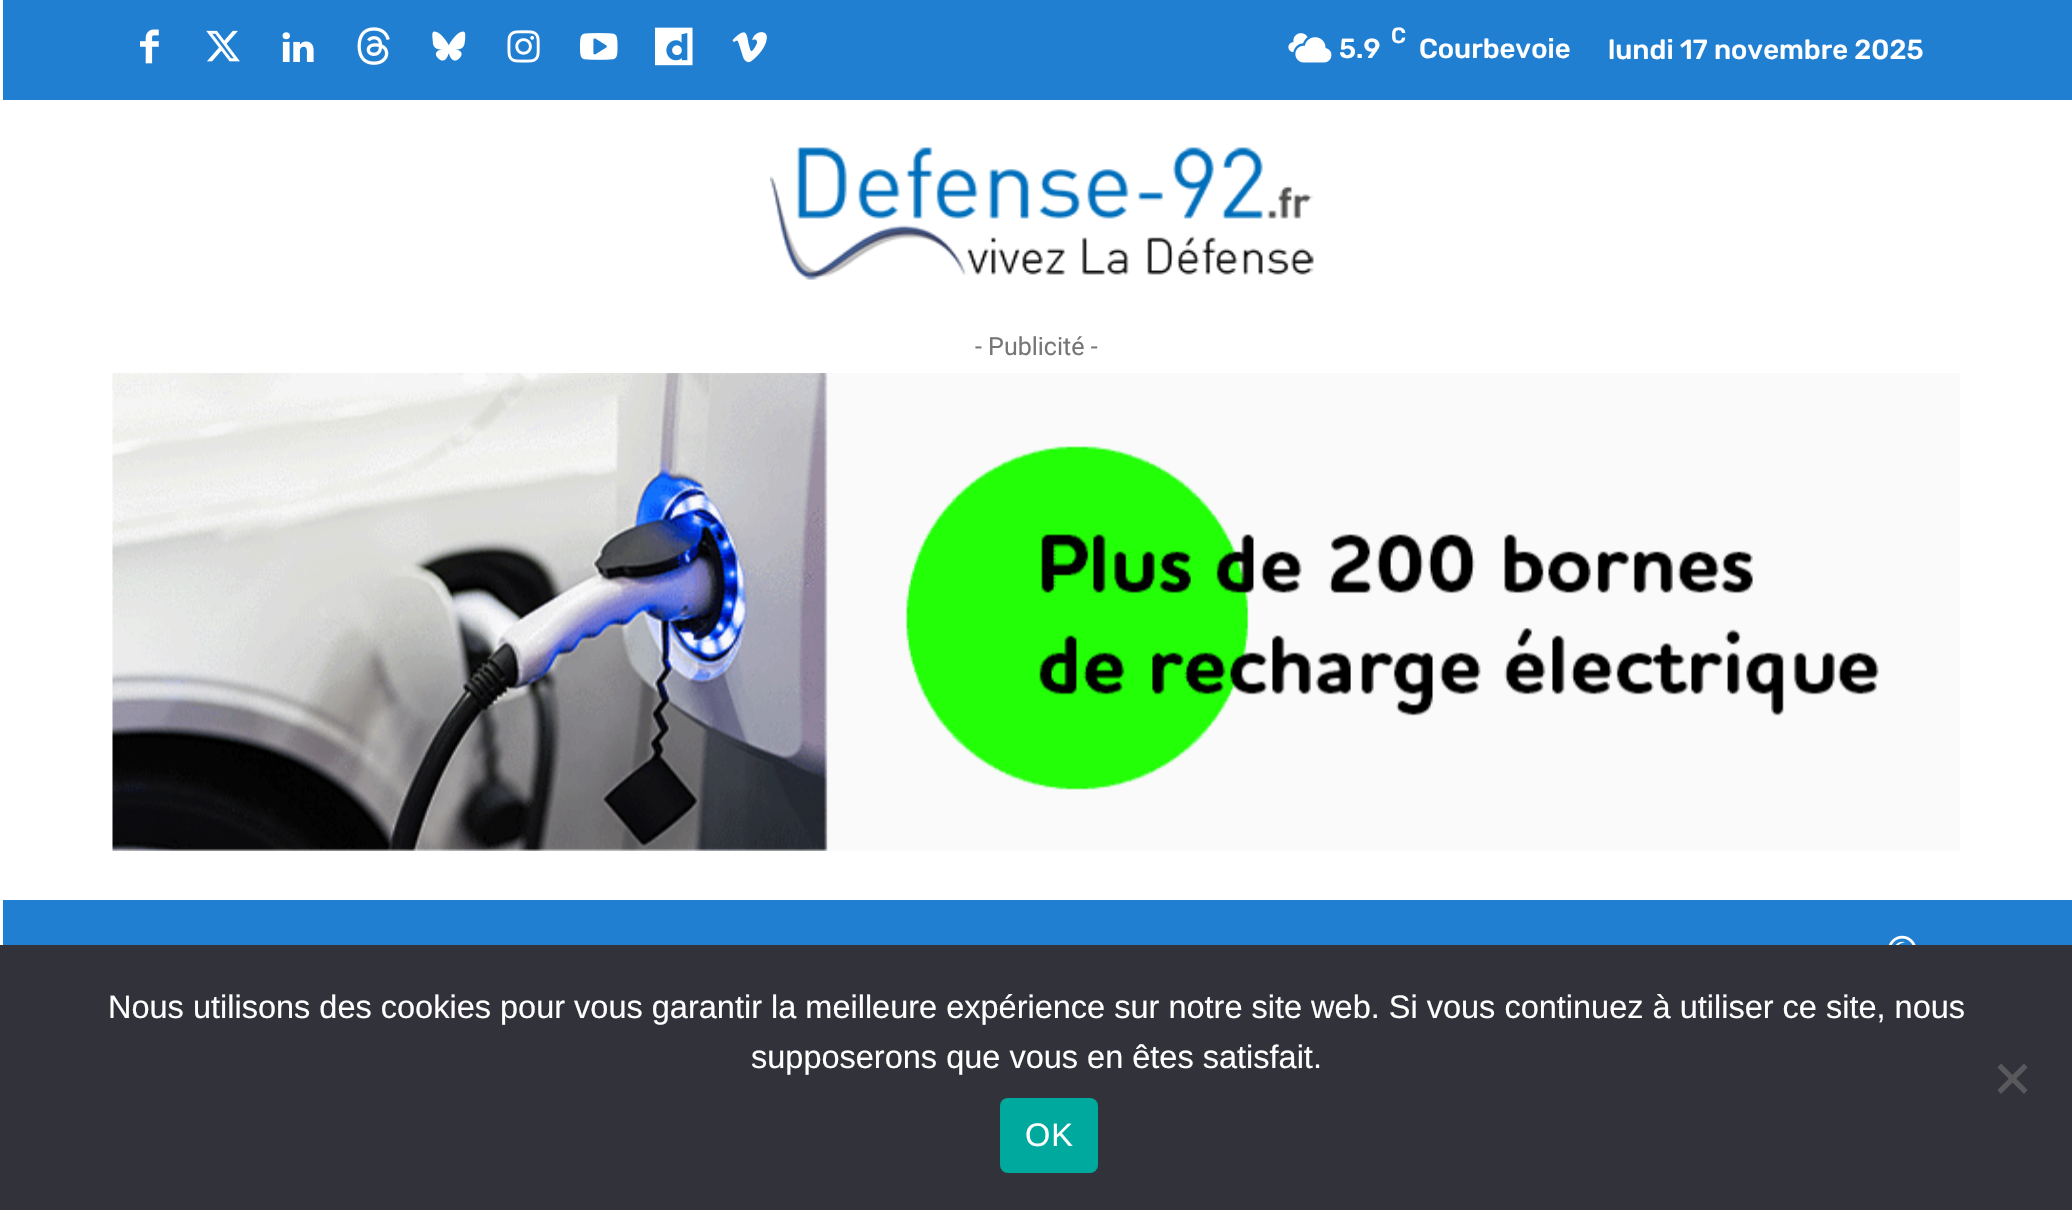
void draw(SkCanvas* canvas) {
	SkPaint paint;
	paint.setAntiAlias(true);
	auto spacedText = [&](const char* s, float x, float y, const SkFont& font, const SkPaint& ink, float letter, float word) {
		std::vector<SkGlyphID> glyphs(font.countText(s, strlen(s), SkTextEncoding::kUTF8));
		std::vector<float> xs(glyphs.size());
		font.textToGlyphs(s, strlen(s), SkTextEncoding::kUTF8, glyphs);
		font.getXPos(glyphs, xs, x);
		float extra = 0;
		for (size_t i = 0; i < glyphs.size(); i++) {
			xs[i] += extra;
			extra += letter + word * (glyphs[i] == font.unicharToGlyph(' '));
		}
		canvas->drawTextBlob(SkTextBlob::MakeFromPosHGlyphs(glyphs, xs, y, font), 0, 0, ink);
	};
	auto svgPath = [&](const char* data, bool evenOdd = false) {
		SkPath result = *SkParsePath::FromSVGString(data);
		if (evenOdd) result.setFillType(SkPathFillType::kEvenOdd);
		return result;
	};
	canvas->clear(0xffffffff);
	paint.setColor(0xff217fd1);
	canvas->drawRect(SkRect::MakeXYWH(3, 0, 2069, 100), paint);
	canvas->drawImageRect(SkImages::DeferredFromEncodedData(SkData::MakeFromFileName("img1.png")), SkRect::MakeXYWH(140, 29, 19, 35), SkSamplingOptions());
	canvas->drawImageRect(SkImages::DeferredFromEncodedData(SkData::MakeFromFileName("img2.png")), SkRect::MakeXYWH(206, 30, 34, 32), SkSamplingOptions());
	canvas->drawImageRect(SkImages::DeferredFromEncodedData(SkData::MakeFromFileName("img3.png")), SkRect::MakeXYWH(282, 32, 32, 30), SkSamplingOptions());
	canvas->drawImageRect(SkImages::DeferredFromEncodedData(SkData::MakeFromFileName("img4.png")), SkRect::MakeXYWH(357, 27, 33, 38), SkSamplingOptions());
	canvas->drawImageRect(SkImages::DeferredFromEncodedData(SkData::MakeFromFileName("img5.png")), SkRect::MakeXYWH(432, 31, 34, 30), SkSamplingOptions());
	canvas->drawImageRect(SkImages::DeferredFromEncodedData(SkData::MakeFromFileName("img6.png")), SkRect::MakeXYWH(507, 30, 33, 33), SkSamplingOptions());
	canvas->drawImageRect(SkImages::DeferredFromEncodedData(SkData::MakeFromFileName("img7.png")), SkRect::MakeXYWH(580, 33, 38, 27), SkSamplingOptions());
	canvas->drawImageRect(SkImages::DeferredFromEncodedData(SkData::MakeFromFileName("img8.png")), SkRect::MakeXYWH(655, 27, 38, 39), SkSamplingOptions());
	canvas->drawImageRect(SkImages::DeferredFromEncodedData(SkData::MakeFromFileName("img9.png")), SkRect::MakeXYWH(732, 32, 35, 31), SkSamplingOptions());
	canvas->drawImageRect(SkImages::DeferredFromEncodedData(SkData::MakeFromFileName("img10.png")), SkRect::MakeXYWH(1288, 33, 44, 30), SkSamplingOptions());
	SkFont f1(fontMgr->matchFamilyStyle("Rubik", SkFontStyle(500, SkFontStyle::kNormal_Width, SkFontStyle::kUpright_Slant)), 22);
	f1.setSubpixel(true);
	paint.setColor(0xffffffff);
	canvas->drawString("C", 1391, 43, f1, paint);
	SkFont f2(fontMgr->matchFamilyStyle("Rubik", SkFontStyle(500, SkFontStyle::kNormal_Width, SkFontStyle::kUpright_Slant)), 27.5);
	f2.setSubpixel(true);
	canvas->drawString("5.9", 1339, 58, f2, paint);
	canvas->drawString("Courbevoie", 1419, 58, f2, paint);
	canvas->drawString("lundi 17 novembre 2025", 1608, 59, f2, paint);
	canvas->drawImageRect(SkImages::DeferredFromEncodedData(SkData::MakeFromFileName("img11.png")), SkRect::MakeXYWH(770, 147, 544, 133), SkSamplingOptions());
	SkFont f3(fontMgr->matchFamilyStyle("Roboto", SkFontStyle::Normal()), 25);
	f3.setSubpixel(true);
	paint.setColor(0xff767676);
	canvas->drawString("- Publicité -", 975, 355, f3, paint);
	canvas->drawImageRect(SkImages::DeferredFromEncodedData(SkData::MakeFromFileName("img12.png")), SkRect::MakeXYWH(112, 373, 1848, 478), SkSamplingOptions());
	paint.setColor(0xff217fd1);
	canvas->drawRect(SkRect::MakeXYWH(3, 900, 2069, 45), paint);
	canvas->drawImageRect(SkImages::DeferredFromEncodedData(SkData::MakeFromFileName("img13.png")), SkRect::MakeXYWH(1888, 935, 28, 10), SkSamplingOptions());
	paint.setColor(0xff32323a);
	canvas->drawRect(SkRect::MakeXYWH(0, 945, 2072, 265), paint);
	SkFont f4(fontMgr->matchFamilyStyle("Liberation Sans", SkFontStyle::Normal()), 32.5);
	f4.setSubpixel(true);
	paint.setColor(0xffffffff);
	canvas->drawString("Nous utilisons des cookies pour vous garantir la meilleure expérience sur notre site web. Si vous continuez à utiliser ce site, nous", 108, 1018, f4, paint);
	canvas->drawString("supposerons que vous en êtes satisfait.", 751, 1068, f4, paint);
	paint.setColor(0xff59595d);
	canvas->drawPath(svgPath("M2024 1063.5L2027.5 1067.5L2001 1094L1997.5 1090Z"), paint);
	canvas->drawPath(svgPath("M1997.5 1067.5L2001 1063.5L2027.5 1090L2024 1094Z"), paint);
	paint.setColor(0xff00a99d);
	canvas->drawRoundRect(SkRect::MakeXYWH(1000, 1098, 98, 75), 8, 8, paint);
	paint.setColor(0xffffffff);
	spacedText("OK", 1025, 1146, f4, paint, 1, 0);
}
